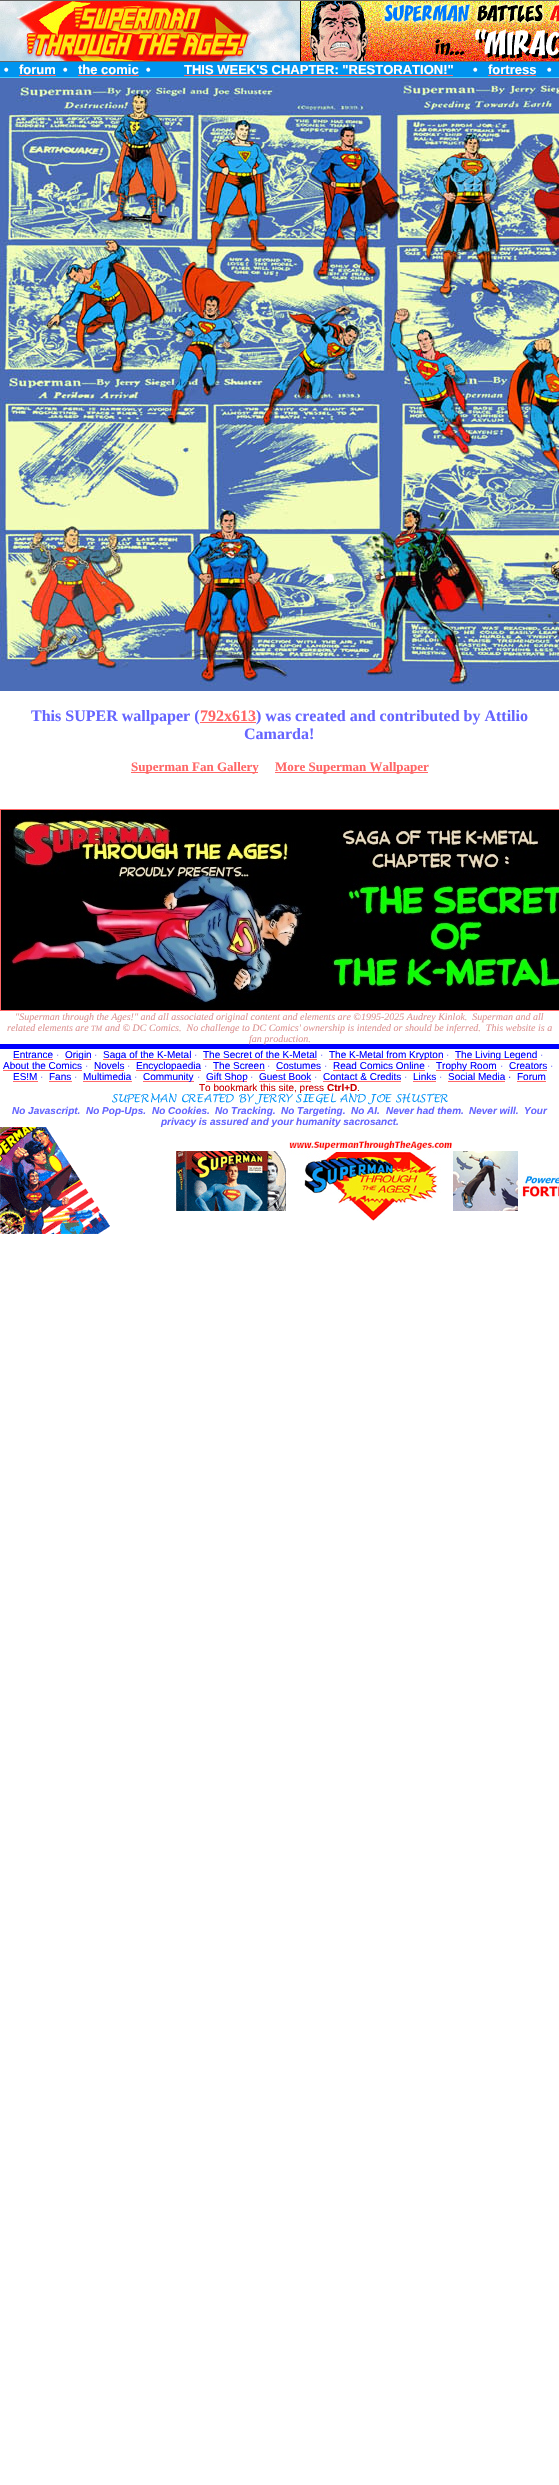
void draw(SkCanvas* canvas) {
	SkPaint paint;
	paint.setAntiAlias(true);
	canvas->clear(0xffffffff);
	paint.setColor(0xff666666);
	canvas->drawRect(SkRect::MakeXYWH(0, 0, 559, 1), paint);
	canvas->drawImageRect(SkImages::DeferredFromEncodedData(SkData::MakeFromFileName("img1.png")), SkRect::MakeXYWH(0, 1, 300, 60), SkSamplingOptions());
	paint.setColor(0xff000000);
	canvas->drawRect(SkRect::MakeXYWH(300, 1, 1, 60), paint);
	canvas->drawImageRect(SkImages::DeferredFromEncodedData(SkData::MakeFromFileName("img2.png")), SkRect::MakeXYWH(301, 1, 258, 60), SkSamplingOptions());
	paint.setColor(0xff666666);
	canvas->drawRect(SkRect::MakeXYWH(0, 61, 559, 1), paint);
	paint.setColor(0xff0094ef);
	canvas->drawRect(SkRect::MakeXYWH(0, 62, 559, 15), paint);
	SkFont f1(fontMgr->matchFamilyStyle("Liberation Sans", SkFontStyle::Bold()), 13);
	f1.setSubpixel(true);
	paint.setColor(0xffffffff);
	canvas->drawString("•", 4, 74, f1, paint);
	canvas->drawString("forum", 19, 74, f1, paint);
	paint.setColor(0xffff6666);
	canvas->drawRect(SkRect::MakeXYWH(19, 75, 37, 1), paint);
	paint.setColor(0xffffffff);
	canvas->drawString("•", 63, 74, f1, paint);
	canvas->drawString("the comic", 78, 74, f1, paint);
	paint.setColor(0xffff6666);
	canvas->drawRect(SkRect::MakeXYWH(78, 75, 61, 1), paint);
	paint.setColor(0xffffffff);
	canvas->drawString("•", 146, 74, f1, paint);
	canvas->drawString("THIS WEEK'S CHAPTER: \"RESTORATION!\"", 184, 74, f1, paint);
	paint.setColor(0xffff6666);
	canvas->drawRect(SkRect::MakeXYWH(184, 75, 269, 1), paint);
	paint.setColor(0xffffffff);
	canvas->drawString("•", 473, 74, f1, paint);
	canvas->drawString("fortress", 488, 74, f1, paint);
	paint.setColor(0xffff6666);
	canvas->drawRect(SkRect::MakeXYWH(488, 75, 48, 1), paint);
	paint.setColor(0xffffffff);
	canvas->drawString("•", 547, 74, f1, paint);
	paint.setColor(0xff45cdff);
	canvas->drawRect(SkRect::MakeXYWH(0, 77, 559, 1), paint);
	canvas->drawImageRect(SkImages::DeferredFromEncodedData(SkData::MakeFromFileName("img3.png")), SkRect::MakeXYWH(0, 78, 559, 613), SkSamplingOptions());
	SkFont f2(fontMgr->matchFamilyStyle("Liberation Serif", SkFontStyle::Bold()), 16);
	f2.setSubpixel(true);
	paint.setColor(0xff6666ff);
	canvas->drawString("This SUPER wallpaper (", 31, 721, f2, paint);
	paint.setColor(0xffff6666);
	canvas->drawRect(SkRect::MakeXYWH(200, 722, 56, 1), paint);
	canvas->drawString("792x613", 200, 721, f2, paint);
	paint.setColor(0xff6666ff);
	canvas->drawString(") was created and contributed by Attilio", 256, 721, f2, paint);
	canvas->drawString("Camarda!", 244, 739, f2, paint);
	paint.setColor(0xffff6666);
	canvas->drawRect(SkRect::MakeXYWH(131, 772, 127, 1), paint);
	SkFont f3(fontMgr->matchFamilyStyle("Liberation Serif", SkFontStyle::Bold()), 13);
	f3.setSubpixel(true);
	canvas->drawString("Superman Fan Gallery", 131, 771, f3, paint);
	canvas->drawRect(SkRect::MakeXYWH(275, 772, 153, 1), paint);
	canvas->drawString("More Superman Wallpaper", 275, 771, f3, paint);
	paint.setStroke(true);
	paint.setStrokeWidth(1);
	canvas->drawRect(SkRect::MakeXYWH(0.5, 809.5, 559, 201), paint);
	canvas->drawImageRect(SkImages::DeferredFromEncodedData(SkData::MakeFromFileName("img4.png")), SkRect::MakeXYWH(1, 810, 558, 200), SkSamplingOptions());
	SkFont f4(fontMgr->matchFamilyStyle("Liberation Serif", SkFontStyle::Italic()), 10);
	f4.setSubpixel(true);
	paint.setStroke(false);
	paint.setColor(0xffdd9796);
	canvas->drawString("\"Superman through the Ages!\" and all associated original content and elements are ©1995-2025 Audrey Kinlok.  Superman and all", 15, 1020, f4, paint);
	canvas->drawString("related elements are", 7, 1031, f4, paint);
	SkFont f5(fontMgr->matchFamilyStyle("Liberation Serif", SkFontStyle::Italic()), 8);
	f5.setSubpixel(true);
	canvas->drawString("TM", 91, 1031, f5, paint);
	canvas->drawString("and © DC Comics.  No challenge to DC Comics' ownership is intended or should be inferred.  This website is a", 105, 1031, f4, paint);
	paint.setColor(0xff0000ff);
	canvas->drawRect(SkRect::MakeXYWH(0, 1044, 559, 5), paint);
	paint.setColor(0xffdd9796);
	canvas->drawString("fan production.", 249, 1042, f4, paint);
	SkFont f6(fontMgr->matchFamilyStyle("Liberation Sans", SkFontStyle::Normal()), 10);
	f6.setSubpixel(true);
	paint.setColor(0xff0000ff);
	canvas->drawString("Entrance", 13, 1058, f6, paint);
	paint.setColor(0xffff6666);
	canvas->drawRect(SkRect::MakeXYWH(13, 1059, 40, 1), paint);
	paint.setColor(0xff6666ff);
	canvas->drawString("·", 56, 1058, f6, paint);
	paint.setColor(0xffff6666);
	canvas->drawRect(SkRect::MakeXYWH(65, 1059, 26, 1), paint);
	paint.setColor(0xff0000ff);
	canvas->drawString("Origin", 65, 1058, f6, paint);
	paint.setColor(0xff6666ff);
	canvas->drawString("·", 94, 1058, f6, paint);
	paint.setColor(0xffff6666);
	canvas->drawRect(SkRect::MakeXYWH(103, 1059, 88, 1), paint);
	paint.setColor(0xff0000ff);
	canvas->drawString("Saga of the K-Metal", 103, 1058, f6, paint);
	paint.setColor(0xff6666ff);
	canvas->drawString("·", 194, 1058, f6, paint);
	paint.setColor(0xff0000ff);
	canvas->drawString("The Secret of the K-Metal", 203, 1058, f6, paint);
	paint.setColor(0xffff6666);
	canvas->drawRect(SkRect::MakeXYWH(203, 1059, 114, 1), paint);
	paint.setColor(0xff6666ff);
	canvas->drawString("·", 320, 1058, f6, paint);
	paint.setColor(0xffff6666);
	canvas->drawRect(SkRect::MakeXYWH(329, 1059, 114, 1), paint);
	paint.setColor(0xff0000ff);
	canvas->drawString("The K-Metal from Krypton", 329, 1058, f6, paint);
	paint.setColor(0xff6666ff);
	canvas->drawString("·", 446, 1058, f6, paint);
	paint.setColor(0xffff6666);
	canvas->drawRect(SkRect::MakeXYWH(455, 1059, 82, 1), paint);
	paint.setColor(0xff0000ff);
	canvas->drawString("The Living Legend", 455, 1058, f6, paint);
	paint.setColor(0xff6666ff);
	canvas->drawString("·", 540, 1058, f6, paint);
	paint.setColor(0xff0000ff);
	canvas->drawString("About the Comics", 3, 1069, f6, paint);
	paint.setColor(0xffff6666);
	canvas->drawRect(SkRect::MakeXYWH(3, 1070, 79, 1), paint);
	paint.setColor(0xff6666ff);
	canvas->drawString("·", 85, 1069, f6, paint);
	paint.setColor(0xff0000ff);
	canvas->drawString("Novels", 94, 1069, f6, paint);
	paint.setColor(0xffff6666);
	canvas->drawRect(SkRect::MakeXYWH(94, 1070, 30, 1), paint);
	paint.setColor(0xff6666ff);
	canvas->drawString("·", 127, 1069, f6, paint);
	paint.setColor(0xffff6666);
	canvas->drawRect(SkRect::MakeXYWH(136, 1070, 65, 1), paint);
	paint.setColor(0xff0000ff);
	canvas->drawString("Encyclopaedia", 136, 1069, f6, paint);
	paint.setColor(0xff6666ff);
	canvas->drawString("·", 204, 1069, f6, paint);
	paint.setColor(0xff0000ff);
	canvas->drawString("The Screen", 213, 1069, f6, paint);
	paint.setColor(0xffff6666);
	canvas->drawRect(SkRect::MakeXYWH(213, 1070, 52, 1), paint);
	paint.setColor(0xff6666ff);
	canvas->drawString("·", 267, 1069, f6, paint);
	paint.setColor(0xff0000ff);
	canvas->drawString("Costumes", 276, 1069, f6, paint);
	paint.setColor(0xffff6666);
	canvas->drawRect(SkRect::MakeXYWH(276, 1070, 45, 1), paint);
	paint.setColor(0xff6666ff);
	canvas->drawString("·", 324, 1069, f6, paint);
	paint.setColor(0xff0000ff);
	canvas->drawString("Read Comics Online", 333, 1069, f6, paint);
	paint.setColor(0xffff6666);
	canvas->drawRect(SkRect::MakeXYWH(333, 1070, 92, 1), paint);
	paint.setColor(0xff6666ff);
	canvas->drawString("·", 427, 1069, f6, paint);
	paint.setColor(0xffff6666);
	canvas->drawRect(SkRect::MakeXYWH(436, 1070, 61, 1), paint);
	paint.setColor(0xff0000ff);
	canvas->drawString("Trophy Room", 436, 1069, f6, paint);
	paint.setColor(0xff6666ff);
	canvas->drawString("·", 500, 1069, f6, paint);
	paint.setColor(0xff0000ff);
	canvas->drawString("Creators", 509, 1069, f6, paint);
	paint.setColor(0xffff6666);
	canvas->drawRect(SkRect::MakeXYWH(509, 1070, 38, 1), paint);
	paint.setColor(0xff6666ff);
	canvas->drawString("·", 550, 1069, f6, paint);
	paint.setColor(0xff0000ff);
	canvas->drawString("ES!M", 13, 1080, f6, paint);
	paint.setColor(0xffff6666);
	canvas->drawRect(SkRect::MakeXYWH(13, 1081, 25, 1), paint);
	paint.setColor(0xff6666ff);
	canvas->drawString("·", 40, 1080, f6, paint);
	paint.setColor(0xff0000ff);
	canvas->drawString("Fans", 49, 1080, f6, paint);
	paint.setColor(0xffff6666);
	canvas->drawRect(SkRect::MakeXYWH(49, 1081, 23, 1), paint);
	paint.setColor(0xff6666ff);
	canvas->drawString("·", 74, 1080, f6, paint);
	paint.setColor(0xff0000ff);
	canvas->drawString("Multimedia", 83, 1080, f6, paint);
	paint.setColor(0xffff6666);
	canvas->drawRect(SkRect::MakeXYWH(83, 1081, 49, 1), paint);
	paint.setColor(0xff6666ff);
	canvas->drawString("·", 134, 1080, f6, paint);
	paint.setColor(0xffff6666);
	canvas->drawRect(SkRect::MakeXYWH(143, 1081, 51, 1), paint);
	paint.setColor(0xff0000ff);
	canvas->drawString("Community", 143, 1080, f6, paint);
	paint.setColor(0xff6666ff);
	canvas->drawString("·", 197, 1080, f6, paint);
	paint.setColor(0xffff6666);
	canvas->drawRect(SkRect::MakeXYWH(206, 1081, 41, 1), paint);
	paint.setColor(0xff0000ff);
	canvas->drawString("Gift Shop", 206, 1080, f6, paint);
	paint.setColor(0xff6666ff);
	canvas->drawString("·", 250, 1080, f6, paint);
	paint.setColor(0xff0000ff);
	canvas->drawString("Guest Book", 259, 1080, f6, paint);
	paint.setColor(0xffff6666);
	canvas->drawRect(SkRect::MakeXYWH(259, 1081, 52, 1), paint);
	paint.setColor(0xff6666ff);
	canvas->drawString("·", 314, 1080, f6, paint);
	paint.setColor(0xff0000ff);
	canvas->drawString("Contact & Credits", 323, 1080, f6, paint);
	paint.setColor(0xffff6666);
	canvas->drawRect(SkRect::MakeXYWH(323, 1081, 78, 1), paint);
	paint.setColor(0xff6666ff);
	canvas->drawString("·", 404, 1080, f6, paint);
	paint.setColor(0xff0000ff);
	canvas->drawString("Links", 413, 1080, f6, paint);
	paint.setColor(0xffff6666);
	canvas->drawRect(SkRect::MakeXYWH(413, 1081, 23, 1), paint);
	paint.setColor(0xff6666ff);
	canvas->drawString("·", 439, 1080, f6, paint);
	paint.setColor(0xff0000ff);
	canvas->drawString("Social Media ·", 448, 1080, f6, paint);
	paint.setColor(0xffff6666);
	canvas->drawRect(SkRect::MakeXYWH(448, 1081, 57, 1), paint);
	paint.setColor(0xff0000ff);
	canvas->drawString("Forum", 517, 1080, f6, paint);
	paint.setColor(0xffff6666);
	canvas->drawRect(SkRect::MakeXYWH(517, 1081, 29, 1), paint);
	paint.setColor(0xffcc0000);
	canvas->drawString("To bookmark this site, press", 199, 1091, f6, paint);
	SkFont f7(fontMgr->matchFamilyStyle("Liberation Sans", SkFontStyle::Bold()), 10);
	f7.setSubpixel(true);
	canvas->drawString("Ctrl+D", 327, 1091, f7, paint);
	canvas->drawString(".", 357, 1091, f6, paint);
	canvas->drawImageRect(SkImages::DeferredFromEncodedData(SkData::MakeFromFileName("img5.png")), SkRect::MakeXYWH(112, 1093, 336, 12), SkSamplingOptions());
	SkFont f8(fontMgr->matchFamilyStyle("Liberation Sans", SkFontStyle::BoldItalic()), 10);
	f8.setSubpixel(true);
	paint.setColor(0xff6666ff);
	canvas->drawString("No Javascript.", 12, 1114, f8, paint);
	canvas->drawString("No Pop-Ups.", 86, 1114, f8, paint);
	canvas->drawString("No Cookies.", 152, 1114, f8, paint);
	canvas->drawString("No Tracking.", 215, 1114, f8, paint);
	canvas->drawString("No Targeting.", 281, 1114, f8, paint);
	canvas->drawString("No AI.", 351, 1114, f8, paint);
	canvas->drawString("Never had them.", 386, 1114, f8, paint);
	canvas->drawString("Never will.", 469, 1114, f8, paint);
	canvas->drawString("Your", 524, 1114, f8, paint);
	canvas->drawString("privacy is assured and your humanity sacrosanct.", 161, 1125, f8, paint);
	canvas->drawImageRect(SkImages::DeferredFromEncodedData(SkData::MakeFromFileName("img6.png")), SkRect::MakeXYWH(0, 1127, 110, 107), SkSamplingOptions());
	canvas->drawImageRect(SkImages::DeferredFromEncodedData(SkData::MakeFromFileName("img7.png")), SkRect::MakeXYWH(176, 1151, 110, 60), SkSamplingOptions());
	canvas->drawImageRect(SkImages::DeferredFromEncodedData(SkData::MakeFromFileName("img8.png")), SkRect::MakeXYWH(289, 1140, 163, 81), SkSamplingOptions());
	canvas->drawImageRect(SkImages::DeferredFromEncodedData(SkData::MakeFromFileName("img9.png")), SkRect::MakeXYWH(453, 1151, 65, 60), SkSamplingOptions());
	canvas->drawImageRect(SkImages::DeferredFromEncodedData(SkData::MakeFromFileName("img10.png")), SkRect::MakeXYWH(518, 1173, 41, 24), SkSamplingOptions());
}
